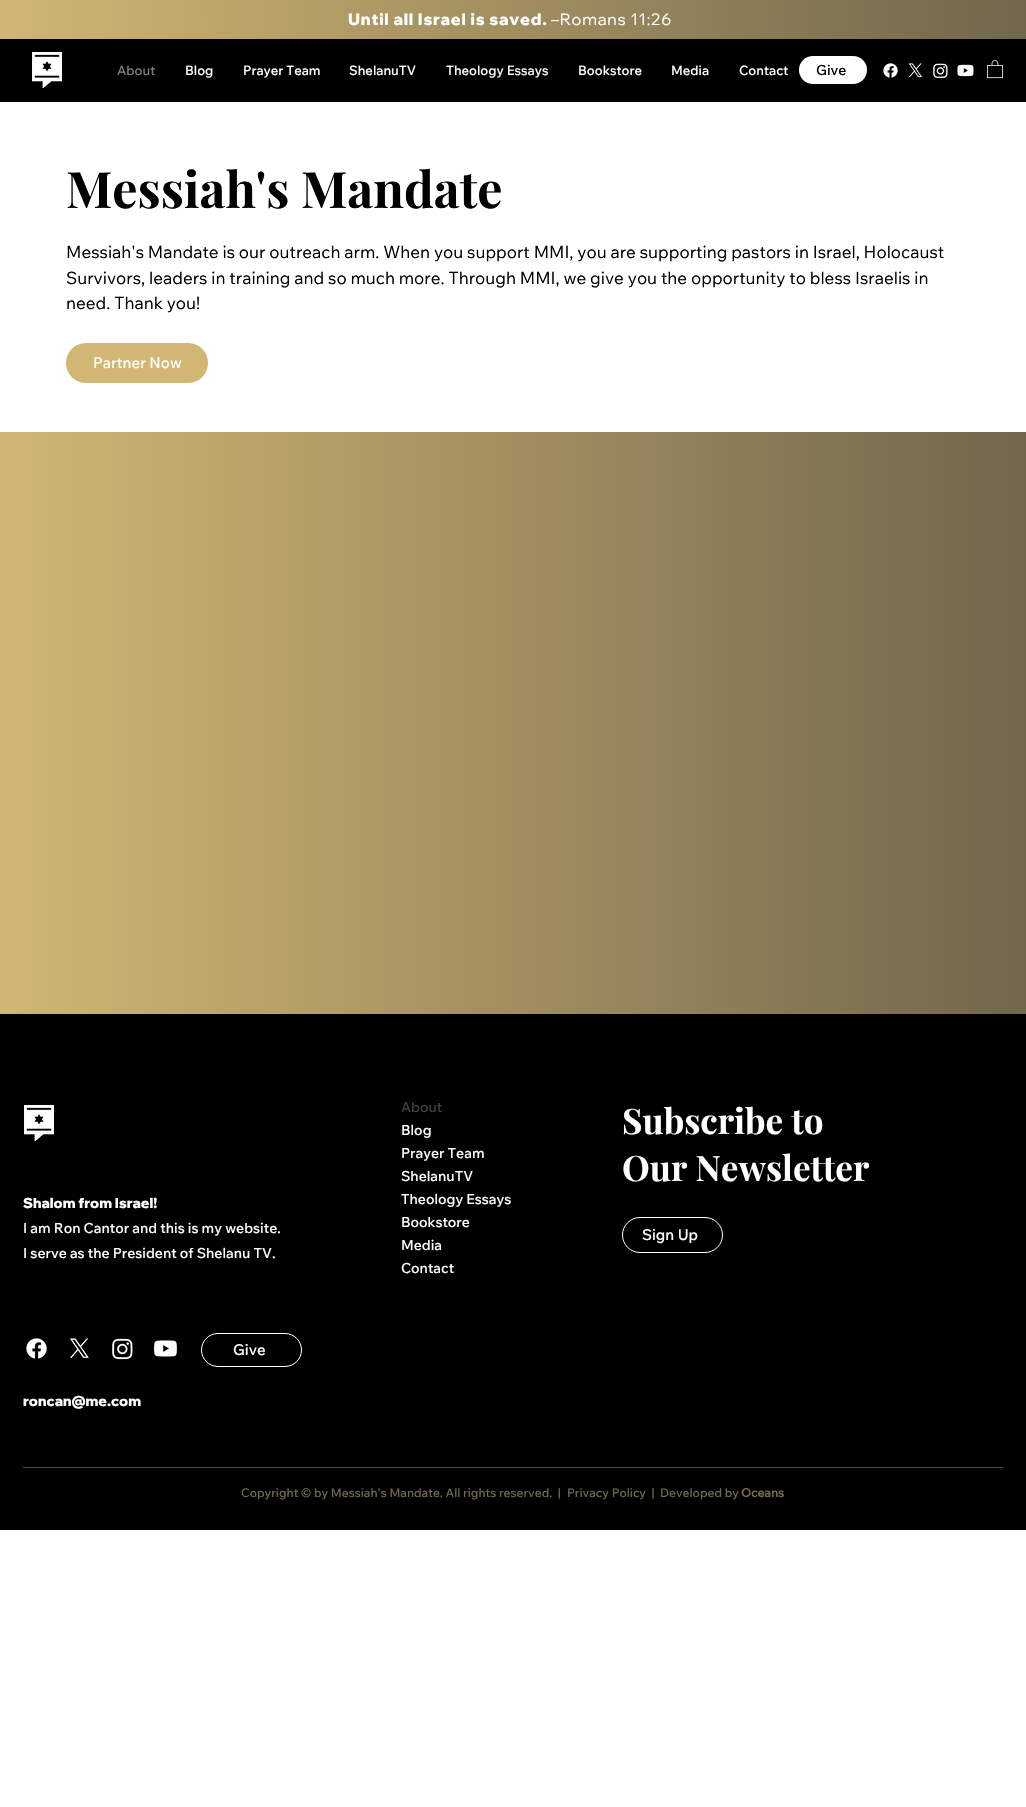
void draw(SkCanvas* canvas) {
	SkPaint paint;
	paint.setAntiAlias(true);
	auto spacedText = [&](const char* s, float x, float y, const SkFont& font, const SkPaint& ink, float letter, float word) {
		std::vector<SkGlyphID> glyphs(font.countText(s, strlen(s), SkTextEncoding::kUTF8));
		std::vector<float> xs(glyphs.size());
		font.textToGlyphs(s, strlen(s), SkTextEncoding::kUTF8, glyphs);
		font.getXPos(glyphs, xs, x);
		float extra = 0;
		for (size_t i = 0; i < glyphs.size(); i++) {
			xs[i] += extra;
			extra += letter + word * (glyphs[i] == font.unicharToGlyph(' '));
		}
		canvas->drawTextBlob(SkTextBlob::MakeFromPosHGlyphs(glyphs, xs, y, font), 0, 0, ink);
	};
	canvas->clear(0xffffffff);
	{
		const SkColor colors[] = {0xffd1b673, 0xff71674d};
		const float stops[] = {0, 1};
		const SkPoint ends[] = {{0, 20}, {1026, 19}};
		paint.setShader(SkGradientShader::MakeLinear(ends, colors, stops, 2, SkTileMode::kClamp));
		paint.setAlpha(255);
	}
	canvas->drawRect(SkRect::MakeXYWH(0, 0, 1026, 39), paint);
	SkFont f1(fontMgr->matchFamilyStyle("Wix Madefor Display", SkFontStyle(800, SkFontStyle::kNormal_Width, SkFontStyle::kUpright_Slant)), 16);
	f1.setSubpixel(true);
	paint.setShader(nullptr);
	paint.setColor(0xffffffff);
	spacedText("Until all Israel is saved.", 348, 25, f1, paint, 0.8, 0);
	SkFont f2(fontMgr->matchFamilyStyle("Wix Madefor Display", SkFontStyle::Normal()), 16);
	f2.setSubpixel(true);
	spacedText("–Romans 11:26", 551, 25, f2, paint, 0.8, 0);
	paint.setColor(0xff000000);
	canvas->drawRect(SkRect::MakeXYWH(0, 39, 1026, 63), paint);
	canvas->drawImageRect(SkImages::DeferredFromEncodedData(SkData::MakeFromFileName("img1.png")), SkRect::MakeXYWH(32, 52, 30, 36), SkSamplingOptions());
	SkFont f3(fontMgr->matchFamilyStyle("Wix Madefor Text", SkFontStyle(500, SkFontStyle::kNormal_Width, SkFontStyle::kUpright_Slant)), 13);
	f3.setSubpixel(true);
	paint.setColor(0xff808080);
	canvas->drawString("About", 117, 75, f3, paint);
	paint.setColor(0xffffffff);
	canvas->drawString("Blog", 185, 75, f3, paint);
	canvas->drawString("Prayer Team", 243, 75, f3, paint);
	canvas->drawString("ShelanuTV", 349, 75, f3, paint);
	canvas->drawString("Theology Essays", 446, 75, f3, paint);
	canvas->drawString("Bookstore", 578, 75, f3, paint);
	canvas->drawString("Media", 671, 75, f3, paint);
	canvas->drawString("Contact", 739, 75, f3, paint);
	canvas->drawRoundRect(SkRect::MakeXYWH(799, 56, 68, 28), 14, 14, paint);
	SkFont f4(fontMgr->matchFamilyStyle("Wix Madefor Text", SkFontStyle(500, SkFontStyle::kNormal_Width, SkFontStyle::kUpright_Slant)), 14);
	f4.setSubpixel(true);
	paint.setColor(0xff000000);
	canvas->drawString("Give", 816, 75, f4, paint);
	canvas->drawImageRect(SkImages::DeferredFromEncodedData(SkData::MakeFromFileName("img2.png")), SkRect::MakeXYWH(883, 63, 15, 15), SkSamplingOptions());
	canvas->drawImageRect(SkImages::DeferredFromEncodedData(SkData::MakeFromFileName("img3.png")), SkRect::MakeXYWH(908, 63, 14, 15), SkSamplingOptions());
	canvas->drawImageRect(SkImages::DeferredFromEncodedData(SkData::MakeFromFileName("img4.png")), SkRect::MakeXYWH(933, 63, 15, 15), SkSamplingOptions());
	canvas->drawImageRect(SkImages::DeferredFromEncodedData(SkData::MakeFromFileName("img5.png")), SkRect::MakeXYWH(957, 64, 17, 13), SkSamplingOptions());
	canvas->drawImageRect(SkImages::DeferredFromEncodedData(SkData::MakeFromFileName("img6.png")), SkRect::MakeXYWH(987, 60, 16, 19), SkSamplingOptions());
	SkFont f5(fontMgr->matchFamilyStyle("Playfair Display", SkFontStyle::Bold()), 50);
	f5.setSubpixel(true);
	canvas->drawString("Messiah's Mandate", 66, 208, f5, paint);
	SkFont f6(fontMgr->matchFamilyStyle("Wix Madefor Text", SkFontStyle::Normal()), 17);
	f6.setSubpixel(true);
	canvas->drawString("Messiah's Mandate is our outreach arm. When you support MMI, you are supporting pastors in Israel, Holocaust", 66, 258, f6, paint);
	canvas->drawString("Survivors, leaders in training and so much more. Through MMI, we give you the opportunity to bless Israelis in", 66, 284, f6, paint);
	canvas->drawString("need. Thank you!", 66, 309, f6, paint);
	paint.setColor(0xffd2b673);
	canvas->drawRoundRect(SkRect::MakeXYWH(66, 343, 142, 40), 20, 20, paint);
	SkFont f7(fontMgr->matchFamilyStyle("Wix Madefor Text", SkFontStyle(500, SkFontStyle::kNormal_Width, SkFontStyle::kUpright_Slant)), 15);
	f7.setSubpixel(true);
	paint.setColor(0xffffffff);
	canvas->drawString("Partner Now", 93, 368, f7, paint);
	{
		const SkColor colors[] = {0xffd1b673, 0xff71674d};
		const float stops[] = {0, 1};
		const SkPoint ends[] = {{0, 723}, {1026, 723}};
		paint.setShader(SkGradientShader::MakeLinear(ends, colors, stops, 2, SkTileMode::kClamp));
		paint.setAlpha(255);
	}
	canvas->drawRect(SkRect::MakeXYWH(0, 432, 1026, 582), paint);
	paint.setShader(nullptr);
	paint.setColor(0xff000000);
	canvas->drawRect(SkRect::MakeXYWH(0, 1014, 1026, 516), paint);
	canvas->drawImageRect(SkImages::DeferredFromEncodedData(SkData::MakeFromFileName("img1.png")), SkRect::MakeXYWH(24, 1105, 30, 36), SkSamplingOptions());
	paint.setColor(0xff404040);
	canvas->drawString("About", 401, 1112, f4, paint);
	paint.setColor(0xffffffff);
	canvas->drawString("Blog", 401, 1135, f4, paint);
	canvas->drawString("Prayer Team", 401, 1158, f4, paint);
	canvas->drawString("ShelanuTV", 401, 1181, f4, paint);
	canvas->drawString("Theology Essays", 401, 1204, f4, paint);
	canvas->drawString("Bookstore", 401, 1227, f4, paint);
	canvas->drawString("Media", 401, 1250, f4, paint);
	canvas->drawString("Contact", 401, 1273, f4, paint);
	SkFont f8(fontMgr->matchFamilyStyle("Playfair Display", SkFontStyle::Bold()), 35);
	f8.setSubpixel(true);
	canvas->drawString("Subscribe to", 622, 1134, f8, paint);
	canvas->drawString("Our Newsletter", 622, 1181, f8, paint);
	SkFont f9(fontMgr->matchFamilyStyle("Wix Madefor Display", SkFontStyle(800, SkFontStyle::kNormal_Width, SkFontStyle::kUpright_Slant)), 14);
	f9.setSubpixel(true);
	canvas->drawString("Shalom from Israel!", 23, 1208, f9, paint);
	canvas->drawString("I am Ron Cantor and this is my website.", 23, 1233, f4, paint);
	canvas->drawString("I serve as the President of Shelanu TV.", 23, 1258, f4, paint);
	paint.setStroke(true);
	paint.setStrokeWidth(1);
	canvas->drawRoundRect(SkRect::MakeXYWH(622.5, 1217.5, 100, 35), 17.5, 17.5, paint);
	paint.setStroke(false);
	canvas->drawString("Sign Up", 642, 1240, f7, paint);
	canvas->drawImageRect(SkImages::DeferredFromEncodedData(SkData::MakeFromFileName("img7.png")), SkRect::MakeXYWH(26, 1338, 21, 21), SkSamplingOptions());
	canvas->drawImageRect(SkImages::DeferredFromEncodedData(SkData::MakeFromFileName("img8.png")), SkRect::MakeXYWH(70, 1338, 19, 20), SkSamplingOptions());
	canvas->drawImageRect(SkImages::DeferredFromEncodedData(SkData::MakeFromFileName("img9.png")), SkRect::MakeXYWH(112, 1338, 21, 22), SkSamplingOptions());
	canvas->drawImageRect(SkImages::DeferredFromEncodedData(SkData::MakeFromFileName("img10.png")), SkRect::MakeXYWH(153, 1340, 25, 17), SkSamplingOptions());
	paint.setStroke(true);
	canvas->drawRoundRect(SkRect::MakeXYWH(201.5, 1333.5, 100, 33), 16.5, 16.5, paint);
	paint.setStroke(false);
	canvas->drawString("Give", 233, 1355, f7, paint);
	canvas->drawString("roncan@me.com", 23, 1406, f9, paint);
	paint.setColor(0xff4a4a4a);
	canvas->drawRect(SkRect::MakeXYWH(23, 1467, 980, 1), paint);
	SkFont f10(fontMgr->matchFamilyStyle("Wix Madefor Text", SkFontStyle(500, SkFontStyle::kNormal_Width, SkFontStyle::kUpright_Slant)), 12);
	f10.setSubpixel(true);
	paint.setColor(0xff72684d);
	canvas->drawString("Copyright © by Messiah's Mandate. All rights reserved.  |", 241, 1497, f10, paint);
	canvas->drawString("Privacy Policy  |  Developed by", 567, 1497, f10, paint);
	SkFont f11(fontMgr->matchFamilyStyle("Wix Madefor Text", SkFontStyle::Bold()), 12);
	f11.setSubpixel(true);
	canvas->drawString("Oceans", 741, 1497, f11, paint);
}
